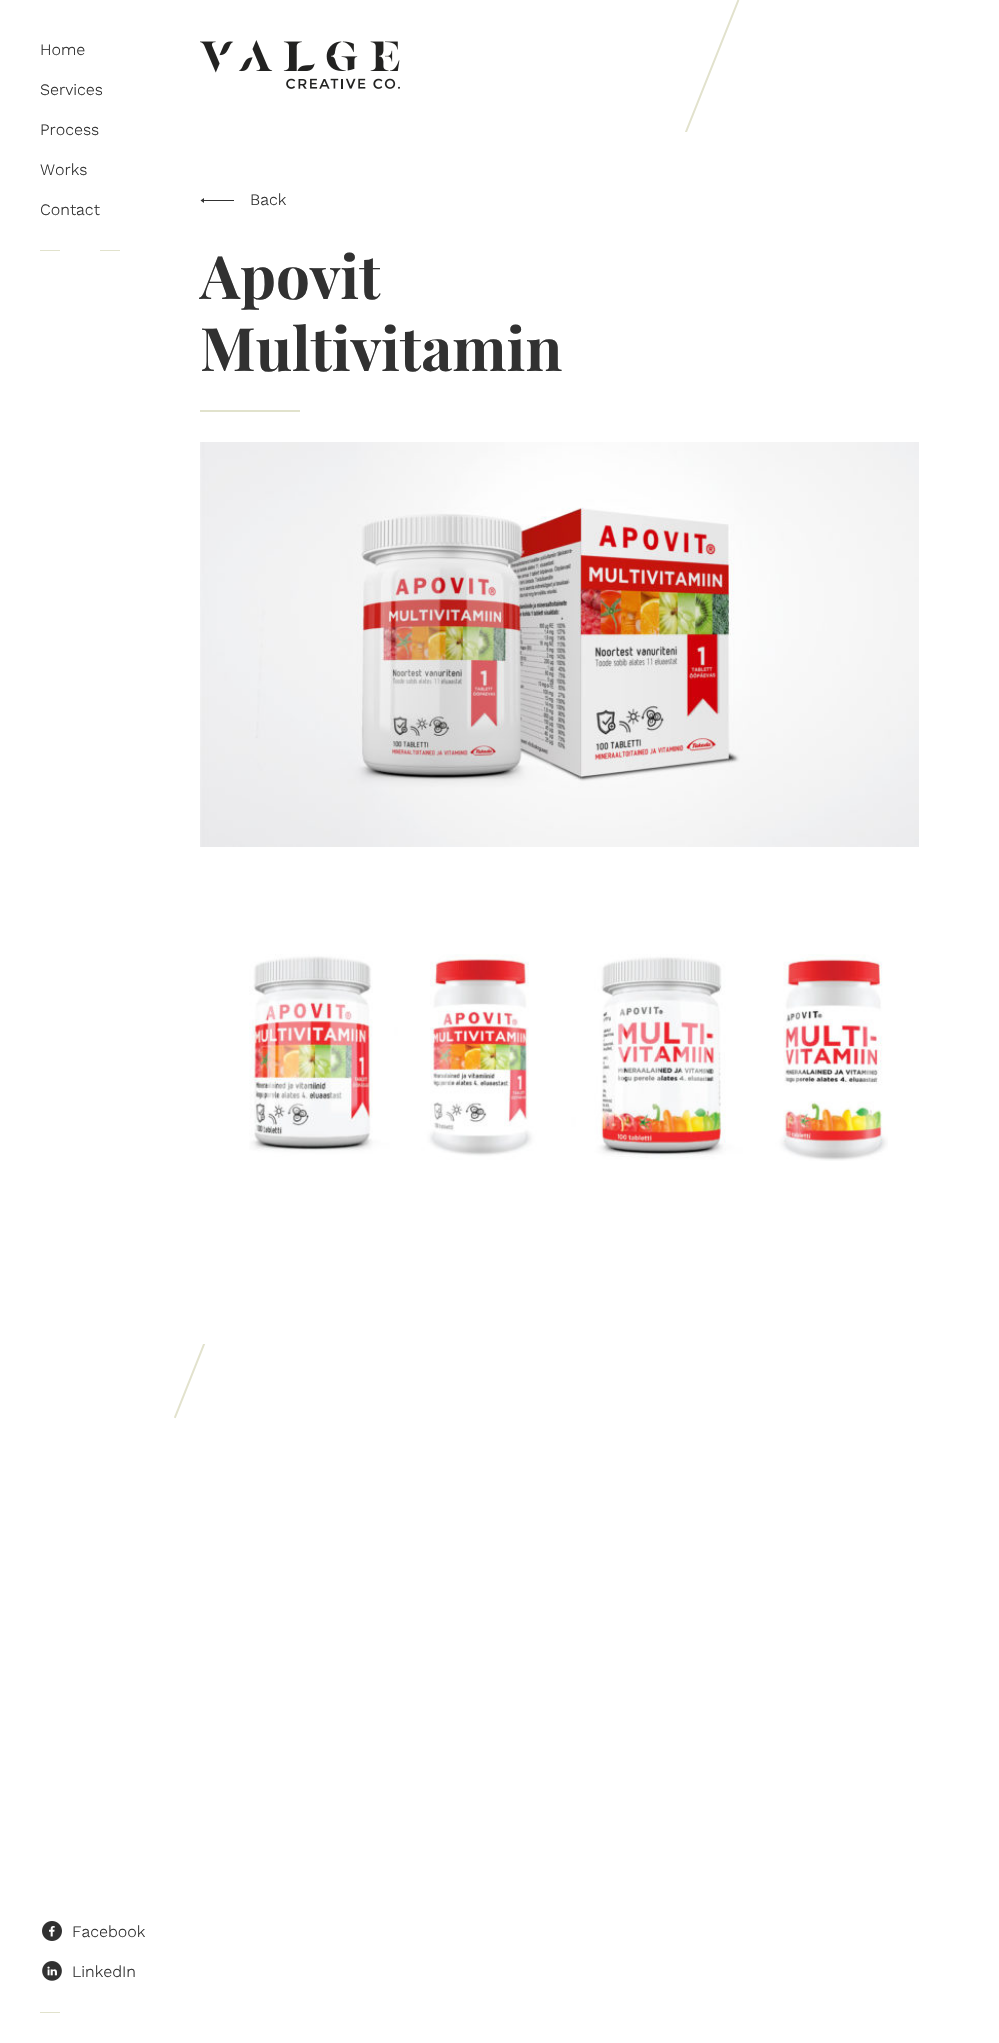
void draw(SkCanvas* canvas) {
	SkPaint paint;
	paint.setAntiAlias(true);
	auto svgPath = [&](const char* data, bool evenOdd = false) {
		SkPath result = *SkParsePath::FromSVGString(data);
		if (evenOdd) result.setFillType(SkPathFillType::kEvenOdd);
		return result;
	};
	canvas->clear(0xffffffff);
	canvas->drawImageRect(SkImages::DeferredFromEncodedData(SkData::MakeFromFileName("img1.png")), SkRect::MakeXYWH(174, 0, 566, 1419), SkSamplingOptions());
	SkFont f1(fontMgr->matchFamilyStyle("Work Sans", SkFontStyle(300, SkFontStyle::kNormal_Width, SkFontStyle::kUpright_Slant)), 16);
	f1.setSubpixel(true);
	paint.setColor(0xff313131);
	canvas->drawString("Home", 40, 55, f1, paint);
	canvas->drawString("Services", 40, 95, f1, paint);
	canvas->drawString("Process", 40, 135, f1, paint);
	canvas->drawString("Works", 40, 175, f1, paint);
	canvas->drawString("Contact", 40, 215, f1, paint);
	paint.setColor(0xffe1e2cc);
	canvas->drawRect(SkRect::MakeXYWH(40, 250, 20, 1), paint);
	canvas->drawRect(SkRect::MakeXYWH(100, 250, 20, 1), paint);
	canvas->drawImageRect(SkImages::DeferredFromEncodedData(SkData::MakeFromFileName("img2.png")), SkRect::MakeXYWH(42, 1921, 20, 20), SkSamplingOptions());
	paint.setColor(0xff313131);
	canvas->drawString("Facebook", 72, 1937, f1, paint);
	canvas->drawImageRect(SkImages::DeferredFromEncodedData(SkData::MakeFromFileName("img3.png")), SkRect::MakeXYWH(42, 1961, 20, 20), SkSamplingOptions());
	canvas->drawString("LinkedIn", 72, 1977, f1, paint);
	paint.setColor(0xffe1e2cc);
	canvas->drawRect(SkRect::MakeXYWH(40, 2012, 20, 1), paint);
	canvas->drawImageRect(SkImages::DeferredFromEncodedData(SkData::MakeFromFileName("img4.png")), SkRect::MakeXYWH(200, 40, 200, 49), SkSamplingOptions());
	paint.setColor(0xffffffff);
	canvas->drawRect(SkRect::MakeXYWH(203, 132, 484, 1212), paint);
	paint.setColor(0xff313131);
	canvas->drawRect(SkRect::MakeXYWH(204, 200, 30, 1), paint);
	canvas->drawPath(svgPath("M204 203L200.5 200.5L204 198Z", true), paint);
	canvas->drawString("Back", 250, 205, f1, paint);
	SkFont f2(fontMgr->matchFamilyStyle("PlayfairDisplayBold", SkFontStyle::Bold()), 60);
	f2.setSubpixel(true);
	canvas->drawString("Apovit", 200, 299, f2, paint);
	canvas->drawString("Multivitamin", 200, 371, f2, paint);
	paint.setColor(0xffe1e2cc);
	canvas->drawRect(SkRect::MakeXYWH(200, 410, 100, 2), paint);
	canvas->drawImageRect(SkImages::DeferredFromEncodedData(SkData::MakeFromFileName("img5.png")), SkRect::MakeXYWH(200, 442, 719, 405), SkSamplingOptions());
	canvas->drawImageRect(SkImages::DeferredFromEncodedData(SkData::MakeFromFileName("img6.png")), SkRect::MakeXYWH(249, 954, 639, 207), SkSamplingOptions());
}
